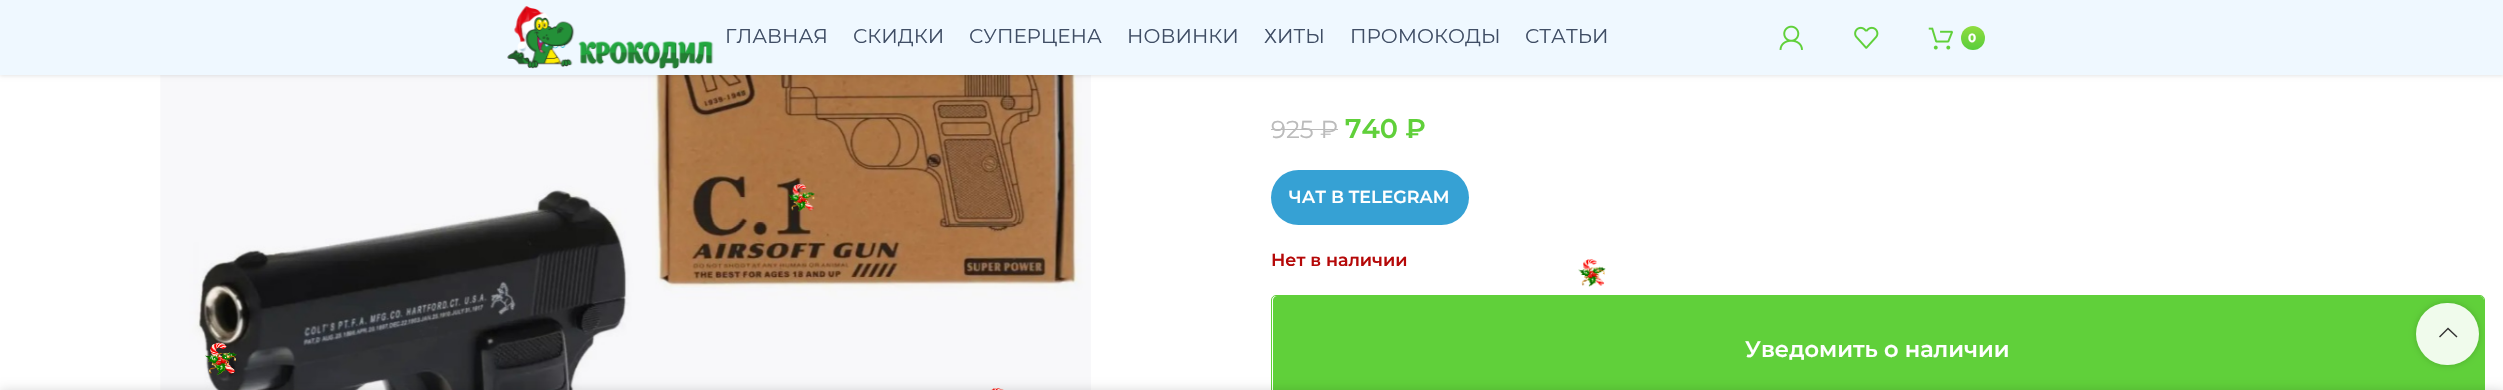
void draw(SkCanvas* canvas) {
	SkPaint paint;
	paint.setAntiAlias(true);
	auto svgPath = [&](const char* data, bool evenOdd = false) {
		SkPath result = *SkParsePath::FromSVGString(data);
		if (evenOdd) result.setFillType(SkPathFillType::kEvenOdd);
		return result;
	};
	canvas->clear(0xffffffff);
	canvas->drawImageRect(SkImages::DeferredFromEncodedData(SkData::MakeFromFileName("img5.png")), SkRect::MakeXYWH(160, 75, 931, 315), SkSamplingOptions());
	paint.setColor(0x1a000000);
	paint.setMaskFilter(SkMaskFilter::MakeBlur(kNormal_SkBlurStyle, 2));
	canvas->drawRect(SkRect::MakeXYWH(0, 1, 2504, 75), paint);
	paint.setMaskFilter(nullptr);
	paint.setColor(0xffeff8ff);
	canvas->drawRect(SkRect::MakeXYWH(0, 0, 2503, 75), paint);
	canvas->drawImageRect(SkImages::DeferredFromEncodedData(SkData::MakeFromFileName("img1.png")), SkRect::MakeXYWH(507, 6, 207, 63), SkSamplingOptions());
	SkFont f1(fontMgr->matchFamilyStyle("Montserrat", SkFontStyle::Normal()), 20);
	f1.setSubpixel(true);
	paint.setColor(0xff404e65);
	canvas->drawString("ГЛАВНАЯ", 725, 43, f1, paint);
	canvas->drawString("СКИДКИ", 853, 43, f1, paint);
	canvas->drawString("СУПЕРЦЕНА", 969, 43, f1, paint);
	canvas->drawString("НОВИНКИ", 1127, 43, f1, paint);
	canvas->drawString("ХИТЫ", 1264, 43, f1, paint);
	canvas->drawString("ПРОМОКОДЫ", 1350, 43, f1, paint);
	canvas->drawString("СТАТЬИ", 1525, 43, f1, paint);
	canvas->drawImageRect(SkImages::DeferredFromEncodedData(SkData::MakeFromFileName("img2.png")), SkRect::MakeXYWH(1779, 25, 24, 25), SkSamplingOptions());
	canvas->drawImageRect(SkImages::DeferredFromEncodedData(SkData::MakeFromFileName("img3.png")), SkRect::MakeXYWH(1854, 26, 25, 23), SkSamplingOptions());
	canvas->drawImageRect(SkImages::DeferredFromEncodedData(SkData::MakeFromFileName("img4.png")), SkRect::MakeXYWH(1928, 27, 25, 23), SkSamplingOptions());
	{
		const SkColor colors[] = {0xff90dd40, 0xff58cd3c};
		const float stops[] = {0, 1};
		const SkPoint ends[] = {{1973, 26}, {1973, 50}};
		paint.setShader(SkGradientShader::MakeLinear(ends, colors, stops, 2, SkTileMode::kClamp));
		paint.setAlpha(255);
	}
	canvas->drawCircle(1973, 38, 12, paint);
	SkFont f2(fontMgr->matchFamilyStyle("Montserrat", SkFontStyle::Bold()), 12);
	f2.setSubpixel(true);
	paint.setShader(nullptr);
	paint.setColor(0xffffffff);
	canvas->drawString("0", 1968, 42, f2, paint);
	SkFont f3(fontMgr->matchFamilyStyle("Montserrat", SkFontStyle::Normal()), 24.5);
	f3.setSubpixel(true);
	paint.setColor(0xffbbbbbb);
	canvas->drawString("925 ₽", 1271, 138, f3, paint);
	canvas->drawRect(SkRect::MakeXYWH(1271, 129, 67, 1), paint);
	SkFont f4(fontMgr->matchFamilyStyle("Montserrat", SkFontStyle(600, SkFontStyle::kNormal_Width, SkFontStyle::kUpright_Slant)), 27);
	f4.setSubpixel(true);
	paint.setColor(0xff60d03a);
	canvas->drawString("740 ₽", 1345, 138, f4, paint);
	paint.setColor(0xff36a1d4);
	canvas->drawRoundRect(SkRect::MakeXYWH(1271, 170, 198, 55), 27.5, 27.5, paint);
	SkFont f5(fontMgr->matchFamilyStyle("Montserrat", SkFontStyle(600, SkFontStyle::kNormal_Width, SkFontStyle::kUpright_Slant)), 17.5);
	f5.setSubpixel(true);
	paint.setColor(0xffffffff);
	canvas->drawString("ЧАТ В TELEGRAM", 1289, 203, f5, paint);
	paint.setColor(0xffb50808);
	canvas->drawString("Нет в наличии", 1271, 266, f5, paint);
	paint.setStroke(true);
	paint.setStrokeWidth(1);
	paint.setColor(0xff60d03a);
	canvas->drawRoundRect(SkRect::MakeXYWH(1271.5, 295.5, 1213, 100), 4.5, 4.5, paint);
	paint.setStroke(false);
	canvas->drawPath(svgPath("M1277 296H2480C2482 296 2484 298 2484 300V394H1273V300C1273 298 1275 296 1277 296Z"), paint);
	SkFont f6(fontMgr->matchFamilyStyle("Montserrat", SkFontStyle(600, SkFontStyle::kNormal_Width, SkFontStyle::kUpright_Slant)), 22.5);
	f6.setSubpixel(true);
	paint.setColor(0xffffffff);
	canvas->drawString("Уведомить о наличии", 1745, 357, f6, paint);
	canvas->drawImageRect(SkImages::DeferredFromEncodedData(SkData::MakeFromFileName("img6.png")), SkRect::MakeXYWH(788, 184, 27, 28), SkSamplingOptions());
	canvas->drawImageRect(SkImages::DeferredFromEncodedData(SkData::MakeFromFileName("img7.png")), SkRect::MakeXYWH(1578, 259, 28, 28), SkSamplingOptions());
	canvas->drawImageRect(SkImages::DeferredFromEncodedData(SkData::MakeFromFileName("img8.png")), SkRect::MakeXYWH(205, 342, 32, 33), SkSamplingOptions());
	canvas->save();
	canvas->clipPath(svgPath("M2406 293H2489V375H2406ZM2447 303H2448C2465 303 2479 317 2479 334C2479 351 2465 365 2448 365H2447C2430 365 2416 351 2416 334C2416 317 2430 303 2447 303Z", true), true);
	paint.setColor(0x2b000000);
	paint.setMaskFilter(SkMaskFilter::MakeBlur(kNormal_SkBlurStyle, 3));
	canvas->drawRoundRect(SkRect::MakeXYWH(2416, 303, 63, 62), 31, 31, paint);
	paint.setMaskFilter(nullptr);
	canvas->restore();
	paint.setColor(0xe6ffffff);
	canvas->drawRoundRect(SkRect::MakeXYWH(2416, 303, 63, 62), 31, 31, paint);
	paint.setColor(0xff333333);
	canvas->drawPath(svgPath("M2456.5 337.5L2457.5 336.5L2448 327.5L2439 336.5L2440 337.5L2448 329.5Z"), paint);
	canvas->drawImageRect(SkImages::DeferredFromEncodedData(SkData::MakeFromFileName("img9.png")), SkRect::MakeXYWH(990, 388, 14, 2), SkSamplingOptions());
	paint.setColor(0x24000000);
	paint.setMaskFilter(SkMaskFilter::MakeBlur(kNormal_SkBlurStyle, 5.5));
	canvas->drawRect(SkRect::MakeXYWH(0, 390, 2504, 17), paint);
	paint.setMaskFilter(nullptr);
}
